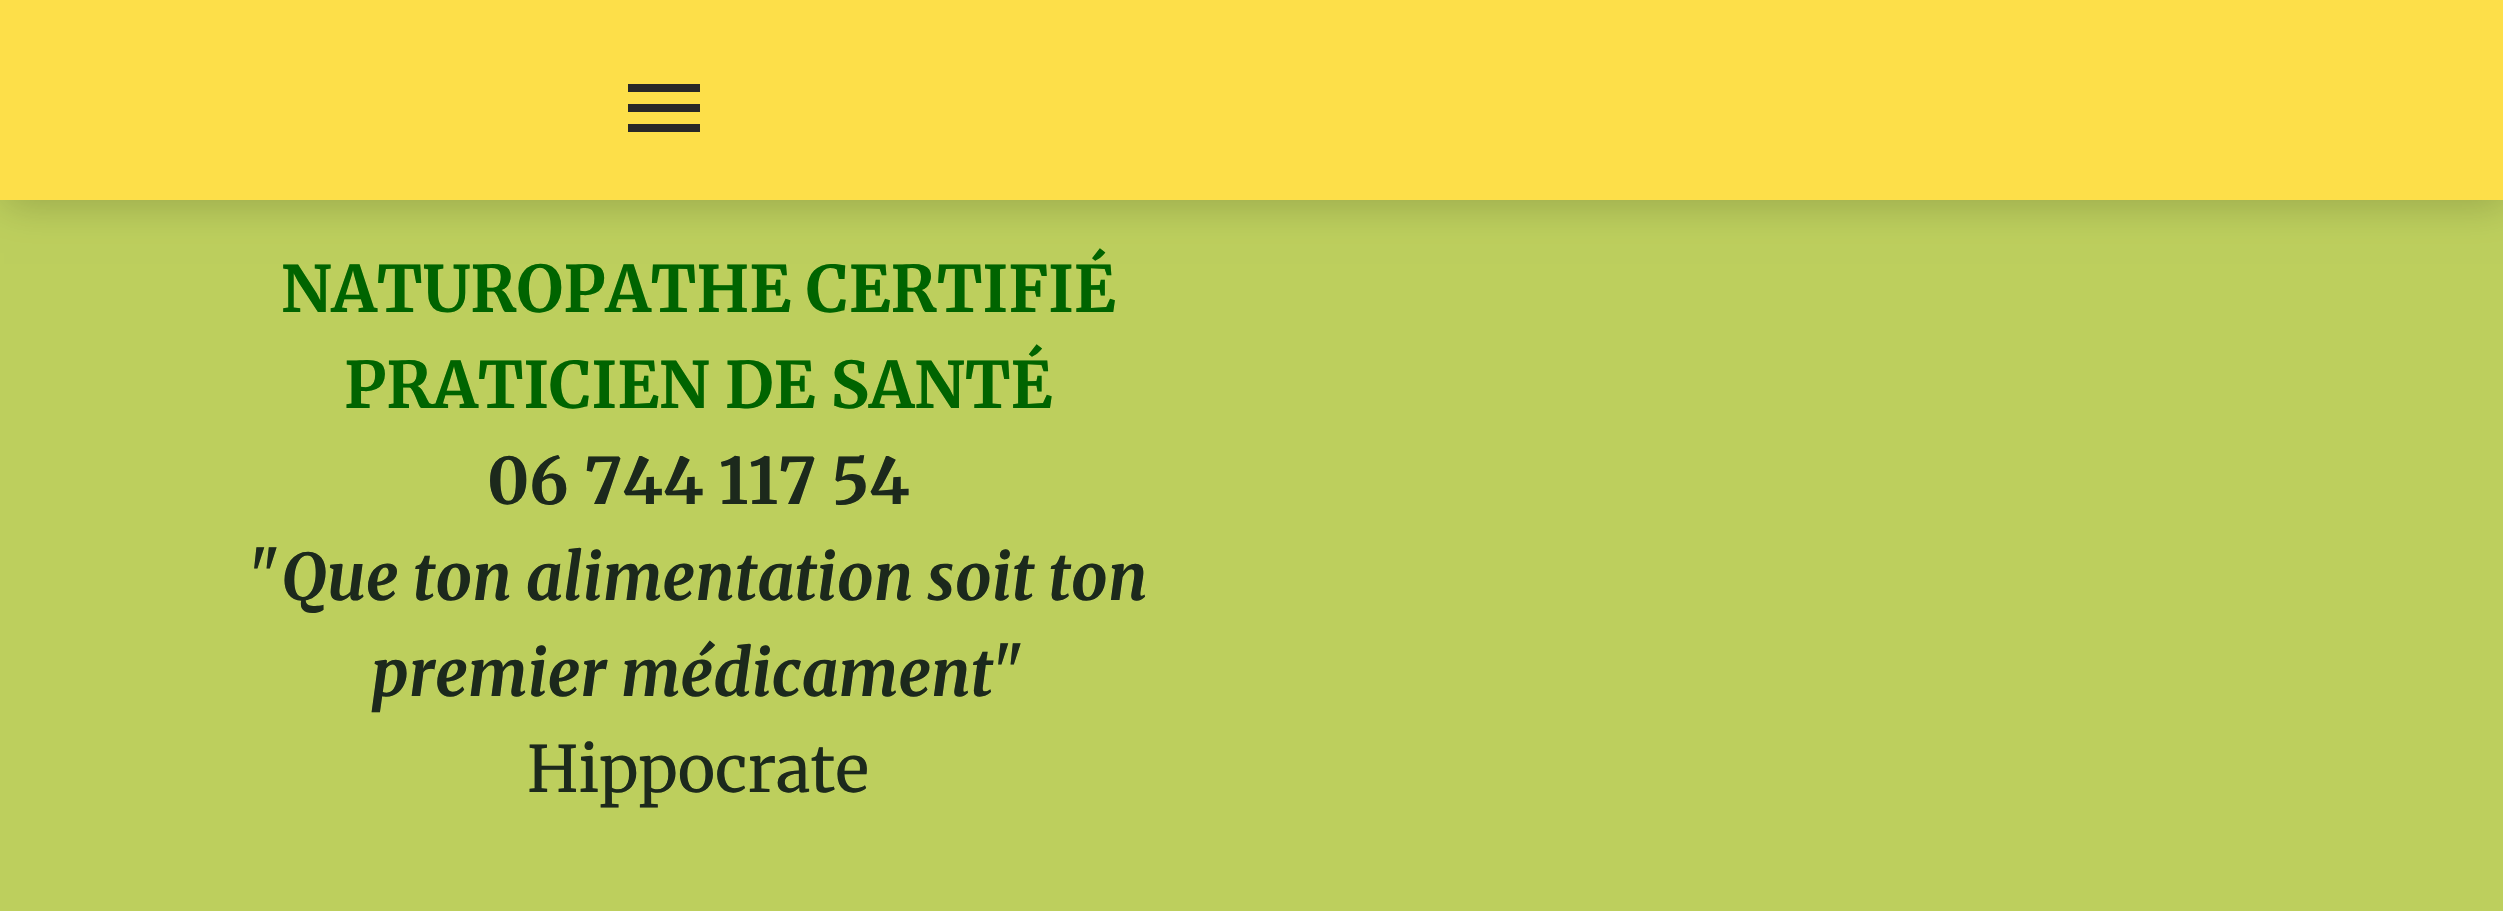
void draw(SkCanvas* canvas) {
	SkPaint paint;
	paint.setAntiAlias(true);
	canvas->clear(0xffbdcf5d);
	paint.setColor(0x33000000);
	paint.setMaskFilter(SkMaskFilter::MakeBlur(kNormal_SkBlurStyle, 20));
	canvas->drawRect(SkRect::MakeXYWH(4, 4, 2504, 200), paint);
	paint.setMaskFilter(nullptr);
	paint.setColor(0xfffddf49);
	canvas->drawRect(SkRect::MakeXYWH(0, 0, 2503, 200), paint);
	paint.setColor(0xff282828);
	canvas->drawRect(SkRect::MakeXYWH(628, 84, 72, 8), paint);
	canvas->drawRect(SkRect::MakeXYWH(628, 104, 72, 8), paint);
	canvas->drawRect(SkRect::MakeXYWH(628, 124, 72, 8), paint);
	SkFont f1(fontMgr->matchFamilyStyle("Merriweather", SkFontStyle::Bold()), 64);
	f1.setSubpixel(true);
	paint.setColor(0xff006400);
	canvas->drawString("NATUROPATHE CERTIFIÉ", 281, 312, f1, paint);
	canvas->drawString("PRATICIEN DE SANTÉ", 344, 408, f1, paint);
	paint.setColor(0xff1c291c);
	canvas->drawString("06 744 117 54", 487, 504, f1, paint);
	SkFont f2(fontMgr->matchFamilyStyle("Merriweather", SkFontStyle::Normal()), 64);
	f2.setSubpixel(true);
	canvas->drawString("\"", 249, 600, f2, paint);
	SkFont f3(fontMgr->matchFamilyStyle("Merriweather", SkFontStyle::BoldItalic()), 64);
	f3.setSubpixel(true);
	canvas->drawString("Que ton alimentation soit ton", 281, 600, f3, paint);
	canvas->drawString("premier médicament", 371, 696, f3, paint);
	canvas->drawString("\"", 993, 696, f2, paint);
	canvas->drawString("Hippocrate", 527, 792, f2, paint);
}
